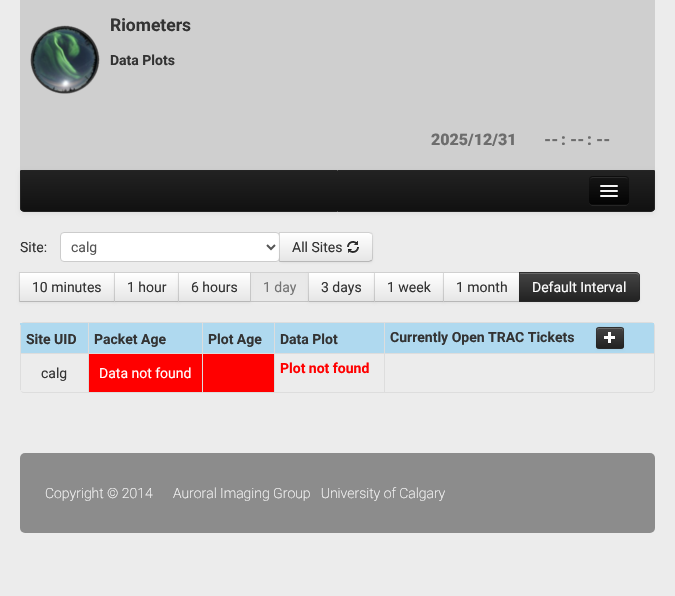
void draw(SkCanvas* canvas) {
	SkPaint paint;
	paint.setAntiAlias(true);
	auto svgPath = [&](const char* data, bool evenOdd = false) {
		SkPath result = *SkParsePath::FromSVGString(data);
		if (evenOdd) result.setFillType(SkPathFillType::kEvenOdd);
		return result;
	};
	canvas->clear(0xffececec);
	paint.setColor(0xffcfcfcf);
	canvas->drawRect(SkRect::MakeXYWH(20, 0, 635, 170), paint);
	canvas->drawImageRect(SkImages::DeferredFromEncodedData(SkData::MakeFromFileName("img1.png")), SkRect::MakeXYWH(30, 25, 70, 69), SkSamplingOptions());
	SkFont f1(fontMgr->matchFamilyStyle("Roboto", SkFontStyle::Bold()), 17.5);
	f1.setSubpixel(true);
	paint.setColor(0xff333333);
	canvas->drawString("Riometers", 110, 31, f1, paint);
	SkFont f2(fontMgr->matchFamilyStyle("Roboto", SkFontStyle::Bold()), 14);
	f2.setSubpixel(true);
	canvas->drawString("Data Plots", 110, 65, f2, paint);
	SkFont f3(fontMgr->matchFamilyStyle("Roboto", SkFontStyle(900, SkFontStyle::kNormal_Width, SkFontStyle::kUpright_Slant)), 16);
	f3.setSubpixel(true);
	paint.setColor(0xff6d6d6d);
	canvas->drawString("2025/12/31", 431, 145, f3, paint);
	canvas->drawString("--", 544, 145, f3, paint);
	canvas->drawString(":", 561, 145, f3, paint);
	canvas->drawString("--", 570, 145, f3, paint);
	canvas->drawString(":", 587, 145, f3, paint);
	canvas->drawString("--", 596, 145, f3, paint);
	paint.setColor(0x12000000);
	paint.setMaskFilter(SkMaskFilter::MakeBlur(kNormal_SkBlurStyle, 2));
	canvas->drawRoundRect(SkRect::MakeXYWH(20, 171, 635, 42), 4, 4, paint);
	paint.setMaskFilter(nullptr);
	canvas->save();
	canvas->clipPath(svgPath("M20 170H655V208C655 210 653 212 651 212H24C22 212 20 210 20 208Z"), true);
	{
		const SkColor colors[] = {0xff222222, 0xff111111};
		const float stops[] = {0, 1};
		const SkPoint ends[] = {{338, 171}, {338, 211}};
		paint.setShader(SkGradientShader::MakeLinear(ends, colors, stops, 2, SkTileMode::kClamp));
		paint.setAlpha(255);
	}
	canvas->drawRect(SkRect::MakeXYWH(20, 171, 635, 40), paint);
	canvas->restore();
	paint.setStroke(true);
	paint.setStrokeWidth(1);
	paint.setShader(nullptr);
	paint.setColor(0xff252525);
	canvas->drawPath(svgPath("M20.5 170.5H654.5V208C654.5 210 653 211.5 651 211.5H24C22 211.5 20.5 210 20.5 208Z"), paint);
	paint.setStroke(false);
	canvas->drawPath(svgPath("M589 201C589 207 594 206 598 206H620C624 206 629 207 629 201C629 203 627 205 625 205H593C591 205 589 203 589 201Z"), paint);
	paint.setColor(0xff0e0e0e);
	canvas->drawRoundRect(SkRect::MakeXYWH(589, 176, 40, 29), 4, 4, paint);
	canvas->save();
	canvas->clipPath(svgPath("M593 176H625C627 176 629 178 629 180V201C629 203 627 205 625 205H593C591 205 589 203 589 201V180C589 178 591 176 593 176Z"), true);
	{
		const SkColor colors[] = {0xff151515, 0xff040404};
		const float stops[] = {0, 1};
		const SkPoint ends[] = {{609, 177}, {609, 204}};
		paint.setShader(SkGradientShader::MakeLinear(ends, colors, stops, 2, SkTileMode::kClamp));
		paint.setAlpha(255);
	}
	canvas->drawRect(SkRect::MakeXYWH(589, 177, 40, 27), paint);
	canvas->restore();
	paint.setShader(nullptr);
	paint.setColor(0xff2c2c2c);
	canvas->drawPath(svgPath("M593 178H625C627 178 628 179 628 181C628 176 624 177 619.5 177H598.5C594 177 590 176 590 181C590 179 591 178 593 178Z"), paint);
	paint.setStroke(true);
	paint.setColor(0x40000000);
	canvas->drawPath(svgPath("M627.5 203.5C627 204 626 204.5 625 204.5H593C592 204.5 591 204 590.5 203.5"), paint);
	paint.setStroke(false);
	paint.setColor(0xff0b0b0b);
	canvas->drawPath(svgPath("M600 186.5C599 188.5 603.5 188 603.5 188H614.5C614.5 188 619 188.5 618 186.5C617 187.5 610.5 187 609 187C607.5 187 601 187.5 600 186.5Z"), paint);
	paint.setColor(0xfff5f5f5);
	canvas->drawRoundRect(SkRect::MakeXYWH(600, 185, 18, 2), 1, 1, paint);
	paint.setColor(0xff080808);
	canvas->drawPath(svgPath("M600 191.5C599 193.5 603.5 193 603.5 193H614.5C614.5 193 619 193.5 618 191.5C617 192.5 610.5 192 609 192C607.5 192 601 192.5 600 191.5Z"), paint);
	paint.setColor(0xfff5f5f5);
	canvas->drawRoundRect(SkRect::MakeXYWH(600, 190, 18, 2), 1, 1, paint);
	canvas->drawRoundRect(SkRect::MakeXYWH(600, 195, 18, 2), 1, 1, paint);
	SkFont f4(fontMgr->matchFamilyStyle("Roboto", SkFontStyle::Normal()), 14);
	f4.setSubpixel(true);
	paint.setColor(0xff333333);
	canvas->drawString("Site:", 20, 252, f4, paint);
	paint.setColor(0xffffffff);
	canvas->drawRoundRect(SkRect::MakeXYWH(60.5, 232.5, 219, 29), 3.5, 3.5, paint);
	paint.setStroke(true);
	paint.setColor(0xffcccccc);
	canvas->drawRoundRect(SkRect::MakeXYWH(60.5, 232.5, 219, 29), 3.5, 3.5, paint);
	paint.setStrokeWidth(2);
	paint.setColor(0xff555555);
	canvas->drawPath(svgPath("M267 245L271 249L275 245"), paint);
	paint.setStroke(false);
	canvas->drawString("calg", 71, 252, f4, paint);
	paint.setColor(0x0d000000);
	paint.setMaskFilter(SkMaskFilter::MakeBlur(kNormal_SkBlurStyle, 1));
	canvas->drawRoundRect(SkRect::MakeXYWH(279, 233, 94, 30), 4, 4, paint);
	paint.setMaskFilter(nullptr);
	paint.setColor(0xfff5f5f5);
	canvas->drawPath(svgPath("M279 232H369C371 232 373 234 373 236V258C373 260 371 262 369 262H279Z"), paint);
	canvas->save();
	canvas->clipPath(svgPath("M279 232H369C371 232 373 234 373 236V258C373 260 371 262 369 262H279Z"), true);
	{
		const SkColor colors[] = {0xffffffff, 0xffe6e6e6};
		const float stops[] = {0, 1};
		const SkPoint ends[] = {{326, 233}, {326, 261}};
		paint.setShader(SkGradientShader::MakeLinear(ends, colors, stops, 2, SkTileMode::kClamp));
		paint.setAlpha(255);
	}
	canvas->drawRect(SkRect::MakeXYWH(279, 233, 94, 28), paint);
	canvas->restore();
	paint.setShader(nullptr);
	paint.setColor(0x26000000);
	canvas->drawPath(svgPath("M279 232L280 233H369L371 234L372 233L369 232Z"), paint);
	canvas->drawPath(svgPath("M373 258V236C373 235 372.5 234 372 233L371 234C372 234 372 235 372 236V258C372 259 372 260 371 260L372 261C372.5 260 373 259 373 258Z"), paint);
	paint.setColor(0x40000000);
	canvas->drawPath(svgPath("M369 262L372 261L371 260L369 261H280L279 262Z"), paint);
	paint.setColor(0x26000000);
	canvas->drawPath(svgPath("M279 232V262L280 261V233Z"), paint);
	paint.setColor(0xff333333);
	canvas->drawString("All Sites", 292, 252, f4, paint);
	canvas->drawImageRect(SkImages::DeferredFromEncodedData(SkData::MakeFromFileName("img2.png")), SkRect::MakeXYWH(347, 241, 12, 13), SkSamplingOptions());
	paint.setColor(0x0d000000);
	paint.setMaskFilter(SkMaskFilter::MakeBlur(kNormal_SkBlurStyle, 1));
	canvas->drawRect(SkRect::MakeXYWH(19, 273, 96, 30), paint);
	paint.setMaskFilter(nullptr);
	paint.setColor(0xfff5f5f5);
	canvas->drawRect(SkRect::MakeXYWH(19, 272, 95, 30), paint);
	{
		const SkColor colors[] = {0xffffffff, 0xffe6e6e6};
		const float stops[] = {0, 1};
		const SkPoint ends[] = {{67, 273}, {67, 301}};
		paint.setShader(SkGradientShader::MakeLinear(ends, colors, stops, 2, SkTileMode::kClamp));
		paint.setAlpha(255);
	}
	canvas->drawRect(SkRect::MakeXYWH(19, 273, 95, 28), paint);
	paint.setShader(nullptr);
	paint.setColor(0xffd0d0d0);
	canvas->drawPath(svgPath("M19 272H115L114 273H20Z"), paint);
	paint.setColor(0x40000000);
	canvas->drawPath(svgPath("M115 302H19L20 301H114Z"), paint);
	paint.setColor(0x26000000);
	canvas->drawPath(svgPath("M19 302V272L20 273V301Z"), paint);
	paint.setColor(0xff333333);
	canvas->drawString("10 minutes", 32, 292, f4, paint);
	paint.setColor(0x0d000000);
	paint.setMaskFilter(SkMaskFilter::MakeBlur(kNormal_SkBlurStyle, 1));
	canvas->drawRect(SkRect::MakeXYWH(114, 273, 65, 30), paint);
	paint.setMaskFilter(nullptr);
	paint.setColor(0xfff5f5f5);
	canvas->drawRect(SkRect::MakeXYWH(114, 272, 64, 30), paint);
	{
		const SkColor colors[] = {0xffffffff, 0xffe6e6e6};
		const float stops[] = {0, 1};
		const SkPoint ends[] = {{147, 273}, {147, 301}};
		paint.setShader(SkGradientShader::MakeLinear(ends, colors, stops, 2, SkTileMode::kClamp));
		paint.setAlpha(255);
	}
	canvas->drawRect(SkRect::MakeXYWH(114, 273, 64, 28), paint);
	paint.setShader(nullptr);
	paint.setColor(0xffd0d0d0);
	canvas->drawPath(svgPath("M114 272H179L178 273H115Z"), paint);
	paint.setColor(0x40000000);
	canvas->drawPath(svgPath("M179 302H114L115 301H178Z"), paint);
	paint.setColor(0x26000000);
	canvas->drawPath(svgPath("M114 302V272L115 273V301Z"), paint);
	paint.setColor(0xff333333);
	canvas->drawString("1 hour", 127, 292, f4, paint);
	paint.setColor(0x0d000000);
	paint.setMaskFilter(SkMaskFilter::MakeBlur(kNormal_SkBlurStyle, 1));
	canvas->drawRect(SkRect::MakeXYWH(178, 273, 73, 30), paint);
	paint.setMaskFilter(nullptr);
	paint.setColor(0xfff5f5f5);
	canvas->drawRect(SkRect::MakeXYWH(178, 272, 73, 30), paint);
	{
		const SkColor colors[] = {0xffffffff, 0xffe6e6e6};
		const float stops[] = {0, 1};
		const SkPoint ends[] = {{215, 273}, {215, 301}};
		paint.setShader(SkGradientShader::MakeLinear(ends, colors, stops, 2, SkTileMode::kClamp));
		paint.setAlpha(255);
	}
	canvas->drawRect(SkRect::MakeXYWH(178, 273, 73, 28), paint);
	paint.setShader(nullptr);
	paint.setColor(0xffd0d0d0);
	canvas->drawPath(svgPath("M178 272H251L250 273H179Z"), paint);
	paint.setColor(0x26000000);
	canvas->drawPath(svgPath("M251 272V302L250 301V273Z"), paint);
	paint.setColor(0x40000000);
	canvas->drawPath(svgPath("M251 302H178L179 301H250Z"), paint);
	paint.setColor(0x26000000);
	canvas->drawPath(svgPath("M178 302V272L179 273V301Z"), paint);
	paint.setColor(0xff333333);
	canvas->drawString("6 hours", 191, 292, f4, paint);
	paint.setColor(0xa6e6e6e6);
	canvas->drawRect(SkRect::MakeXYWH(250, 272, 58, 30), paint);
	paint.setColor(0xffd2d2d2);
	canvas->drawPath(svgPath("M250 272H309L308 273H251Z"), paint);
	paint.setColor(0x29000000);
	canvas->drawPath(svgPath("M309 302H250L251 301H308Z"), paint);
	paint.setColor(0x1a000000);
	canvas->drawPath(svgPath("M250 302V272L251 273V301Z"), paint);
	paint.setColor(0xff747474);
	canvas->drawString("1 day", 263, 292, f4, paint);
	paint.setColor(0x0d000000);
	paint.setMaskFilter(SkMaskFilter::MakeBlur(kNormal_SkBlurStyle, 1));
	canvas->drawRect(SkRect::MakeXYWH(308, 273, 67, 30), paint);
	paint.setMaskFilter(nullptr);
	paint.setColor(0xfff5f5f5);
	canvas->drawRect(SkRect::MakeXYWH(308, 272, 66, 30), paint);
	{
		const SkColor colors[] = {0xffffffff, 0xffe6e6e6};
		const float stops[] = {0, 1};
		const SkPoint ends[] = {{342, 273}, {342, 301}};
		paint.setShader(SkGradientShader::MakeLinear(ends, colors, stops, 2, SkTileMode::kClamp));
		paint.setAlpha(255);
	}
	canvas->drawRect(SkRect::MakeXYWH(308, 273, 66, 28), paint);
	paint.setShader(nullptr);
	paint.setColor(0xffd0d0d0);
	canvas->drawPath(svgPath("M308 272H375L374 273H309Z"), paint);
	paint.setColor(0x40000000);
	canvas->drawPath(svgPath("M375 302H308L309 301H374Z"), paint);
	paint.setColor(0x26000000);
	canvas->drawPath(svgPath("M308 302V272L309 273V301Z"), paint);
	paint.setColor(0xff333333);
	canvas->drawString("3 days", 321, 292, f4, paint);
	paint.setColor(0x0d000000);
	paint.setMaskFilter(SkMaskFilter::MakeBlur(kNormal_SkBlurStyle, 1));
	canvas->drawRect(SkRect::MakeXYWH(374, 273, 70, 30), paint);
	paint.setMaskFilter(nullptr);
	paint.setColor(0xfff5f5f5);
	canvas->drawRect(SkRect::MakeXYWH(374, 272, 69, 30), paint);
	{
		const SkColor colors[] = {0xffffffff, 0xffe6e6e6};
		const float stops[] = {0, 1};
		const SkPoint ends[] = {{409, 273}, {409, 301}};
		paint.setShader(SkGradientShader::MakeLinear(ends, colors, stops, 2, SkTileMode::kClamp));
		paint.setAlpha(255);
	}
	canvas->drawRect(SkRect::MakeXYWH(374, 273, 69, 28), paint);
	paint.setShader(nullptr);
	paint.setColor(0xffd0d0d0);
	canvas->drawPath(svgPath("M374 272H444L443 273H375Z"), paint);
	paint.setColor(0x40000000);
	canvas->drawPath(svgPath("M444 302H374L375 301H443Z"), paint);
	paint.setColor(0x26000000);
	canvas->drawPath(svgPath("M374 302V272L375 273V301Z"), paint);
	paint.setColor(0xff333333);
	canvas->drawString("1 week", 387, 292, f4, paint);
	paint.setColor(0x0d000000);
	paint.setMaskFilter(SkMaskFilter::MakeBlur(kNormal_SkBlurStyle, 1));
	canvas->drawRect(SkRect::MakeXYWH(443, 273, 77, 30), paint);
	paint.setMaskFilter(nullptr);
	paint.setColor(0xfff5f5f5);
	canvas->drawRect(SkRect::MakeXYWH(443, 272, 76, 30), paint);
	{
		const SkColor colors[] = {0xffffffff, 0xffe6e6e6};
		const float stops[] = {0, 1};
		const SkPoint ends[] = {{482, 273}, {482, 301}};
		paint.setShader(SkGradientShader::MakeLinear(ends, colors, stops, 2, SkTileMode::kClamp));
		paint.setAlpha(255);
	}
	canvas->drawRect(SkRect::MakeXYWH(443, 273, 76, 28), paint);
	paint.setShader(nullptr);
	paint.setColor(0xffd0d0d0);
	canvas->drawPath(svgPath("M443 272H520L519 273H444Z"), paint);
	paint.setColor(0x40000000);
	canvas->drawPath(svgPath("M520 302H443L444 301H519Z"), paint);
	paint.setColor(0x26000000);
	canvas->drawPath(svgPath("M443 302V272L444 273V301Z"), paint);
	paint.setColor(0xff333333);
	canvas->drawString("1 month", 456, 292, f4, paint);
	paint.setColor(0x0d000000);
	paint.setMaskFilter(SkMaskFilter::MakeBlur(kNormal_SkBlurStyle, 1));
	canvas->drawRoundRect(SkRect::MakeXYWH(519, 273, 121, 30), 4, 4, paint);
	paint.setMaskFilter(nullptr);
	paint.setColor(0xff363636);
	canvas->drawPath(svgPath("M519 272H636C638 272 640 274 640 276V298C640 300 638 302 636 302H519Z"), paint);
	canvas->save();
	canvas->clipPath(svgPath("M519 272H636C638 272 640 274 640 276V298C640 300 638 302 636 302H519Z"), true);
	{
		const SkColor colors[] = {0xff444444, 0xff222222};
		const float stops[] = {0, 1};
		const SkPoint ends[] = {{580, 273}, {580, 301}};
		paint.setShader(SkGradientShader::MakeLinear(ends, colors, stops, 2, SkTileMode::kClamp));
		paint.setAlpha(255);
	}
	canvas->drawRect(SkRect::MakeXYWH(519, 273, 121, 28), paint);
	canvas->restore();
	paint.setShader(nullptr);
	paint.setColor(0xff696969);
	canvas->drawPath(svgPath("M520 274H636C638 274 639 275 639 277V276C639 274 638 273 636 273H520Z"), paint);
	paint.setColor(0x1a000000);
	canvas->drawPath(svgPath("M519 272L520 273H636L638 274L639 273L636 272Z"), paint);
	canvas->drawPath(svgPath("M640 298V276C640 275 639.5 274 639 273L638 274C639 274 639 275 639 276V298C639 299 639 300 638 300L639 301C639.5 300 640 299 640 298Z"), paint);
	paint.setColor(0x40000000);
	canvas->drawPath(svgPath("M636 302L639 301L638 300L636 301H520L519 302Z"), paint);
	paint.setColor(0x1a000000);
	canvas->drawPath(svgPath("M519 272V302L520 301V273Z"), paint);
	paint.setColor(0xffffffff);
	canvas->drawString("Default Interval", 532, 292, f4, paint);
	paint.setColor(0xffdddddd);
	canvas->drawPath(svgPath("M24 322H651C653 322 655 324 655 326V389C655 391 653 393 651 393H24C22 393 20 391 20 389V326C20 324 22 322 24 322ZM24 323H651C653 323 654 324 654 326V389C654 391 653 392 651 392H24C22 392 20 391 20 389V326C20 324 22 323 24 323Z", true), paint);
	paint.setColor(0xffafd9ef);
	canvas->drawRect(SkRect::MakeXYWH(20, 323, 634, 30), paint);
	paint.setColor(0xffdddddd);
	canvas->drawRect(SkRect::MakeXYWH(20, 325, 1, 28), paint);
	paint.setColor(0xff333333);
	canvas->drawString("Site UID", 26, 344, f2, paint);
	paint.setColor(0xffdddddd);
	canvas->drawRect(SkRect::MakeXYWH(88, 323, 1, 30), paint);
	paint.setColor(0xff333333);
	canvas->drawString("Packet Age", 94, 344, f2, paint);
	paint.setColor(0xffdddddd);
	canvas->drawRect(SkRect::MakeXYWH(202, 323, 1, 30), paint);
	paint.setColor(0xff333333);
	canvas->drawString("Plot Age", 208, 344, f2, paint);
	paint.setColor(0xffdddddd);
	canvas->drawRect(SkRect::MakeXYWH(274, 323, 1, 30), paint);
	paint.setColor(0xff333333);
	canvas->drawString("Data Plot", 280, 344, f2, paint);
	paint.setColor(0xffdddddd);
	canvas->drawRect(SkRect::MakeXYWH(384, 323, 1, 30), paint);
	paint.setColor(0xff333333);
	canvas->drawString("Currently Open TRAC Tickets", 390, 342, f2, paint);
	paint.setColor(0xffdddddd);
	canvas->drawRect(SkRect::MakeXYWH(20, 353, 634, 1), paint);
	paint.setColor(0x0d000000);
	paint.setMaskFilter(SkMaskFilter::MakeBlur(kNormal_SkBlurStyle, 1));
	canvas->drawRoundRect(SkRect::MakeXYWH(596, 328, 28, 22), 3, 3, paint);
	paint.setMaskFilter(nullptr);
	paint.setColor(0xff363636);
	canvas->drawRoundRect(SkRect::MakeXYWH(596, 327, 28, 22), 3, 3, paint);
	canvas->save();
	canvas->clipPath(svgPath("M599 327H621C622.5 327 624 328.5 624 330V346C624 347.5 622.5 349 621 349H599C597.5 349 596 347.5 596 346V330C596 328.5 597.5 327 599 327Z"), true);
	{
		const SkColor colors[] = {0xff444444, 0xff222222};
		const float stops[] = {0, 1};
		const SkPoint ends[] = {{610, 328}, {610, 348}};
		paint.setShader(SkGradientShader::MakeLinear(ends, colors, stops, 2, SkTileMode::kClamp));
		paint.setAlpha(255);
	}
	canvas->drawRect(SkRect::MakeXYWH(596, 328, 28, 20), paint);
	canvas->restore();
	paint.setShader(nullptr);
	paint.setColor(0xff686868);
	canvas->drawPath(svgPath("M599 329H622L623 331.5C623 327 621.5 328 617.5 328H602.5C599 328 597 327 597 331C597 330 598 329 599 329Z"), paint);
	paint.setStroke(true);
	paint.setStrokeWidth(1);
	paint.setColor(0x40000000);
	canvas->drawPath(svgPath("M623 348C622.5 348 621.5 348.5 621 348.5H599C598.5 348.5 597.5 348 597 348"), paint);
	paint.setColor(0x1a000000);
	canvas->drawPath(svgPath("M597 348C596 346.5 596.5 344.5 596.5 343.5V338C596.5 324.5 595.5 327.5 610 327.5C624.5 327.5 623.5 324.5 623.5 338V343.5C623.5 344.5 624 346.5 623 348"), paint);
	canvas->drawImageRect(SkImages::DeferredFromEncodedData(SkData::MakeFromFileName("img3.png")), SkRect::MakeXYWH(604, 332, 11, 12), SkSamplingOptions());
	paint.setStroke(false);
	paint.setColor(0xffdddddd);
	canvas->drawRect(SkRect::MakeXYWH(20, 353, 1, 37), paint);
	paint.setColor(0xff333333);
	canvas->drawString("calg", 41, 378, f4, paint);
	paint.setColor(0xffff0000);
	canvas->drawRect(SkRect::MakeXYWH(89, 354, 113, 38), paint);
	paint.setColor(0xffdddddd);
	canvas->drawRect(SkRect::MakeXYWH(88, 353, 1, 39), paint);
	paint.setColor(0xffffffff);
	canvas->drawString("Data not found", 99, 378, f4, paint);
	paint.setColor(0xffff0000);
	canvas->drawRect(SkRect::MakeXYWH(203, 354, 71, 38), paint);
	paint.setColor(0xffdddddd);
	canvas->drawRect(SkRect::MakeXYWH(202, 353, 1, 39), paint);
	canvas->drawRect(SkRect::MakeXYWH(274, 353, 1, 39), paint);
	paint.setColor(0xffff0000);
	canvas->drawString("Plot not found", 280, 373, f2, paint);
	paint.setColor(0xffdddddd);
	canvas->drawRect(SkRect::MakeXYWH(384, 353, 1, 39), paint);
	paint.setColor(0xff8c8c8c);
	canvas->drawRoundRect(SkRect::MakeXYWH(20, 453, 635, 80), 5, 5, paint);
	SkFont f5(fontMgr->matchFamilyStyle("Roboto", SkFontStyle(200, SkFontStyle::kNormal_Width, SkFontStyle::kUpright_Slant)), 14);
	f5.setSubpixel(true);
	paint.setColor(0xffffffff);
	canvas->drawString("Copyright © 2014      Auroral Imaging Group   University of Calgary", 45, 498, f5, paint);
}
